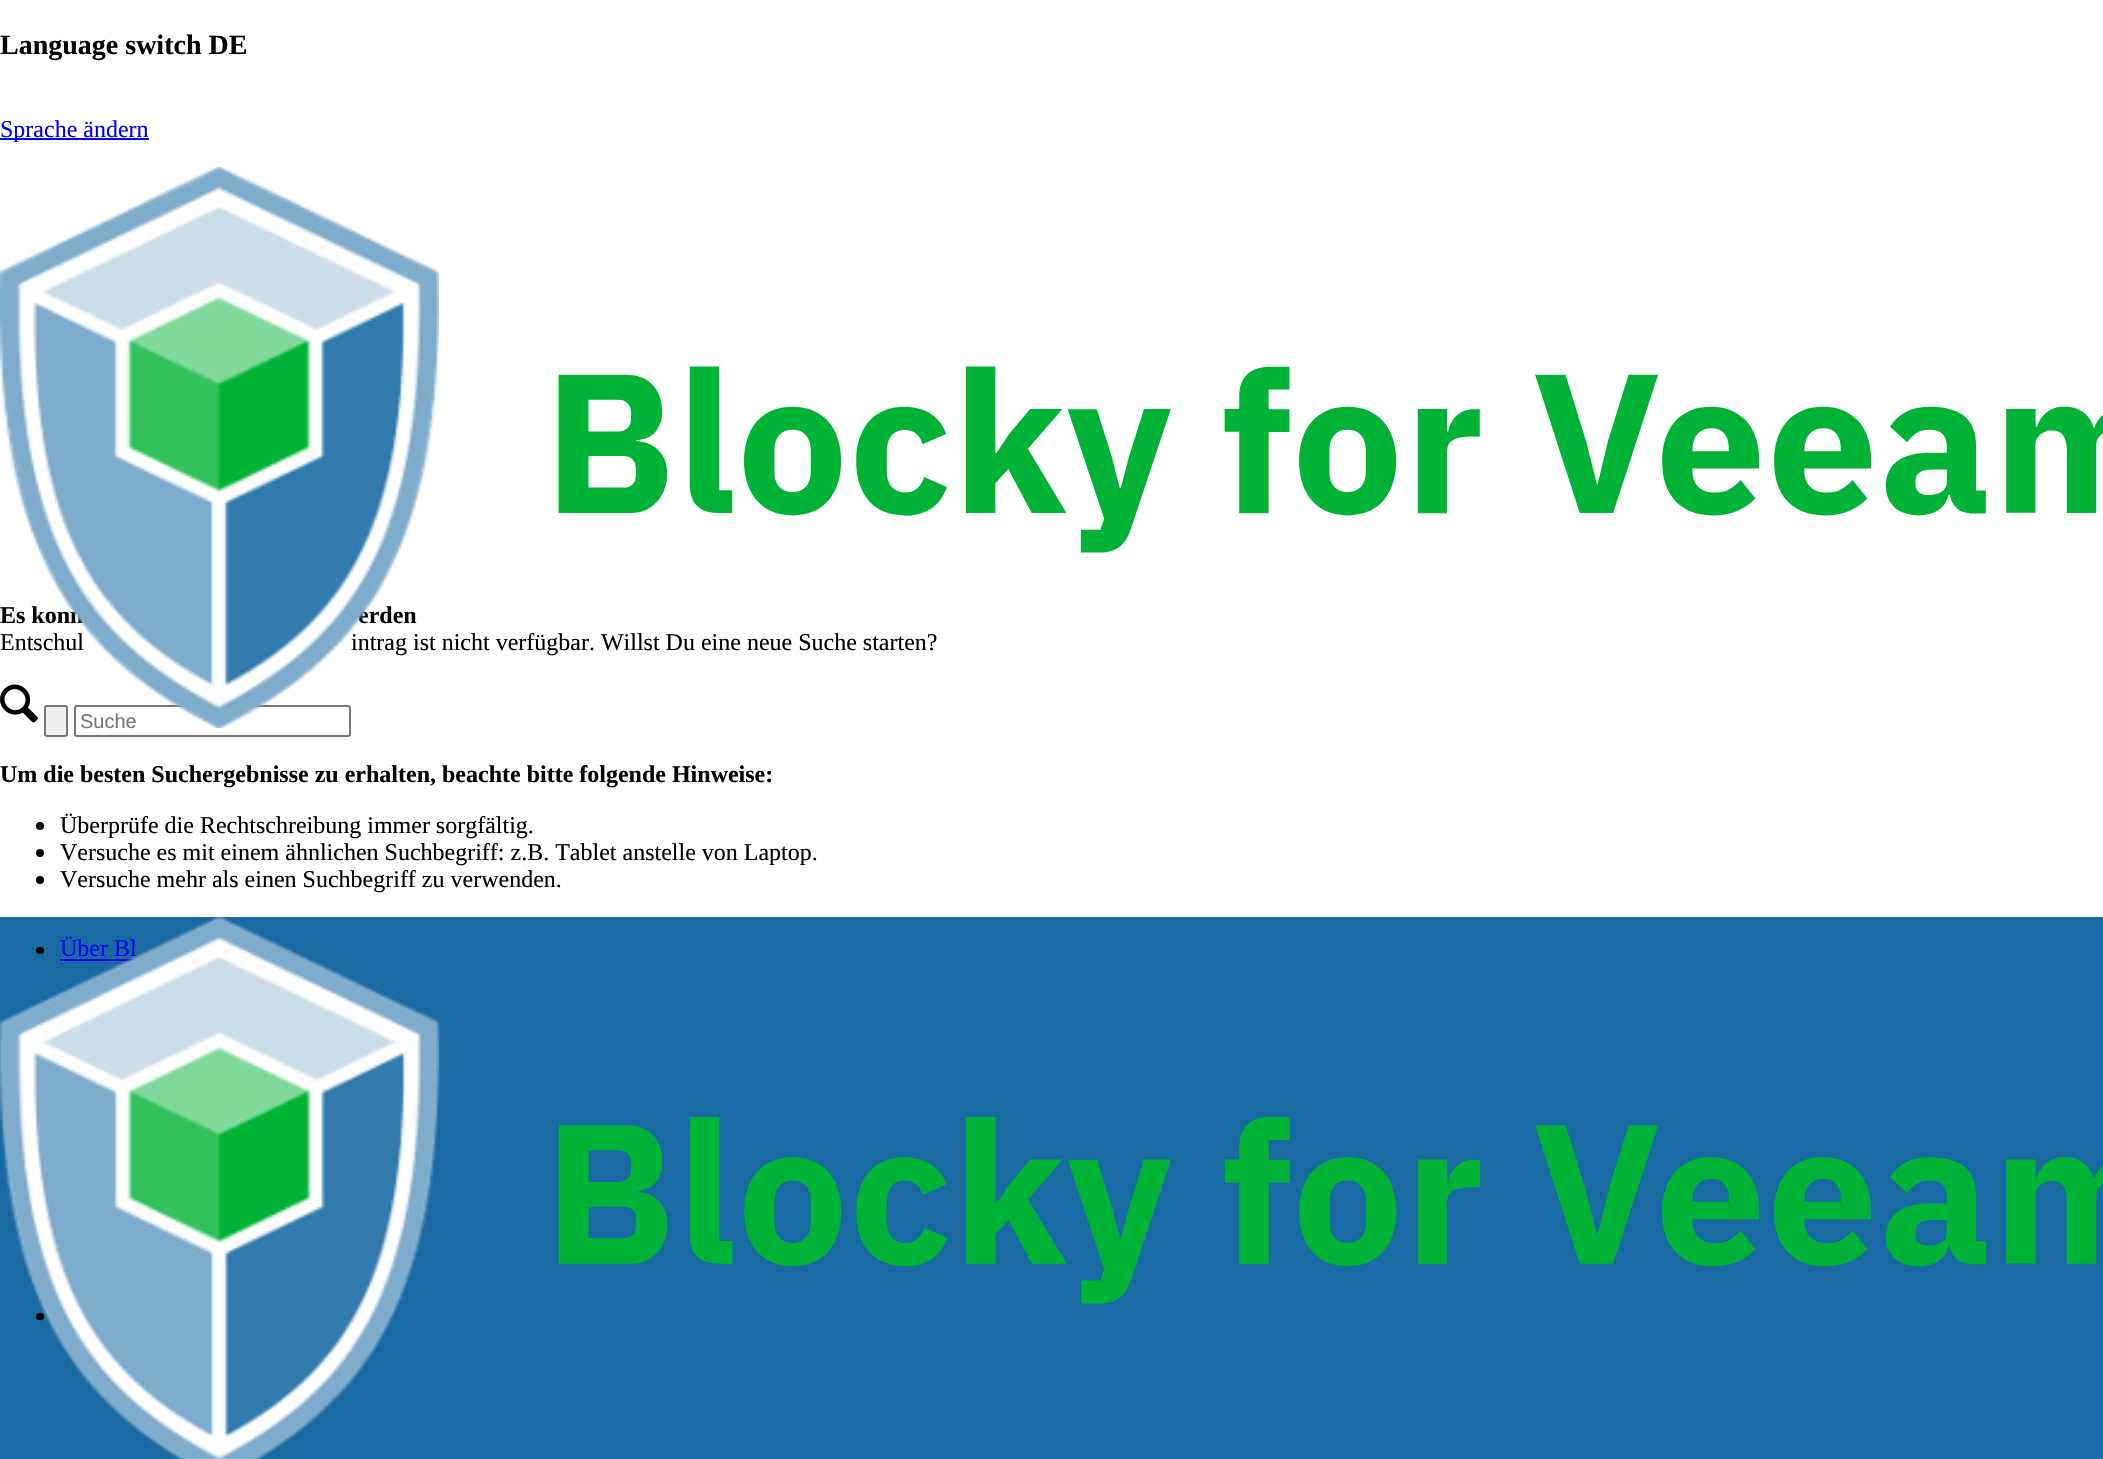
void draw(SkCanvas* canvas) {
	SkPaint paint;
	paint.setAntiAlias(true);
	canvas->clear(0xffffffff);
	SkFont f1(fontMgr->matchFamilyStyle("Liberation Serif", SkFontStyle::Bold()), 28);
	f1.setSubpixel(true);
	paint.setColor(0xff000000);
	canvas->drawString("Language switch DE", 0, 54, f1, paint);
	paint.setColor(0xff0000ee);
	canvas->drawRect(SkRect::MakeXYWH(0, 138, 149, 2), paint);
	SkFont f2(fontMgr->matchFamilyStyle("Liberation Serif", SkFontStyle::Normal()), 24);
	f2.setSubpixel(true);
	canvas->drawString("Sprache ändern", 0, 137, f2, paint);
	SkFont f3(fontMgr->matchFamilyStyle("Liberation Serif", SkFontStyle::Bold()), 24);
	f3.setSubpixel(true);
	paint.setColor(0xff000000);
	canvas->drawString("Es konn", 0, 623, f3, paint);
	canvas->drawString("erden", 358, 623, f3, paint);
	canvas->drawString("Entschul", 0, 650, f2, paint);
	canvas->drawString("intrag ist nicht verfügbar. Willst Du eine neue Suche starten?", 351, 650, f2, paint);
	paint.setStroke(true);
	paint.setStrokeWidth(2);
	paint.setColor(0xff767676);
	canvas->drawRoundRect(SkRect::MakeXYWH(75, 706, 275, 30), 2, 2, paint);
	SkFont f4(fontMgr->matchFamilyStyle("Liberation Sans", SkFontStyle::Normal()), 20);
	f4.setSubpixel(true);
	paint.setStroke(false);
	paint.setColor(0xff757575);
	canvas->drawString("Suche", 80, 728, f4, paint);
	canvas->drawImageRect(SkImages::DeferredFromEncodedData(SkData::MakeFromFileName("img1.png")), SkRect::MakeXYWH(0, 166, 2103, 562), SkSamplingOptions());
	paint.setColor(0xff1969a2);
	canvas->drawRect(SkRect::MakeXYWH(0, 917, 2103, 542), paint);
	paint.setColor(0xff000000);
	canvas->drawRoundRect(SkRect::MakeXYWH(36, 947, 8, 7), 3.5, 3.5, paint);
	paint.setColor(0xff0000ee);
	canvas->drawString("Über Bl", 60, 956, f2, paint);
	canvas->drawRect(SkRect::MakeXYWH(60, 959, 78, 2), paint);
	paint.setColor(0xff000000);
	canvas->drawRoundRect(SkRect::MakeXYWH(36, 1313, 8, 7), 3.5, 3.5, paint);
	canvas->drawImageRect(SkImages::DeferredFromEncodedData(SkData::MakeFromFileName("img2.png")), SkRect::MakeXYWH(0, 684, 38, 39), SkSamplingOptions());
	paint.setColor(0xffefefef);
	canvas->drawRoundRect(SkRect::MakeXYWH(45, 706, 22, 30), 2, 2, paint);
	paint.setStroke(true);
	paint.setColor(0xff767676);
	canvas->drawRoundRect(SkRect::MakeXYWH(45, 706, 22, 30), 2, 2, paint);
	paint.setStroke(false);
	paint.setColor(0xff000000);
	canvas->drawString("Um die besten Suchergebnisse zu erhalten, beachte bitte folgende Hinweise:", 0, 782, f3, paint);
	canvas->drawCircle(40, 826, 4, paint);
	canvas->drawString("Überprüfe die Rechtschreibung immer sorgfältig.", 60, 833, f2, paint);
	canvas->drawCircle(40, 853, 4, paint);
	canvas->drawString("Versuche es mit einem ähnlichen Suchbegriff: z.B. Tablet anstelle von Laptop.", 60, 860, f2, paint);
	canvas->drawCircle(40, 880, 4, paint);
	canvas->drawString("Versuche mehr als einen Suchbegriff zu verwenden.", 60, 887, f2, paint);
	canvas->drawImageRect(SkImages::DeferredFromEncodedData(SkData::MakeFromFileName("img3.png")), SkRect::MakeXYWH(0, 917, 2103, 542), SkSamplingOptions());
}
